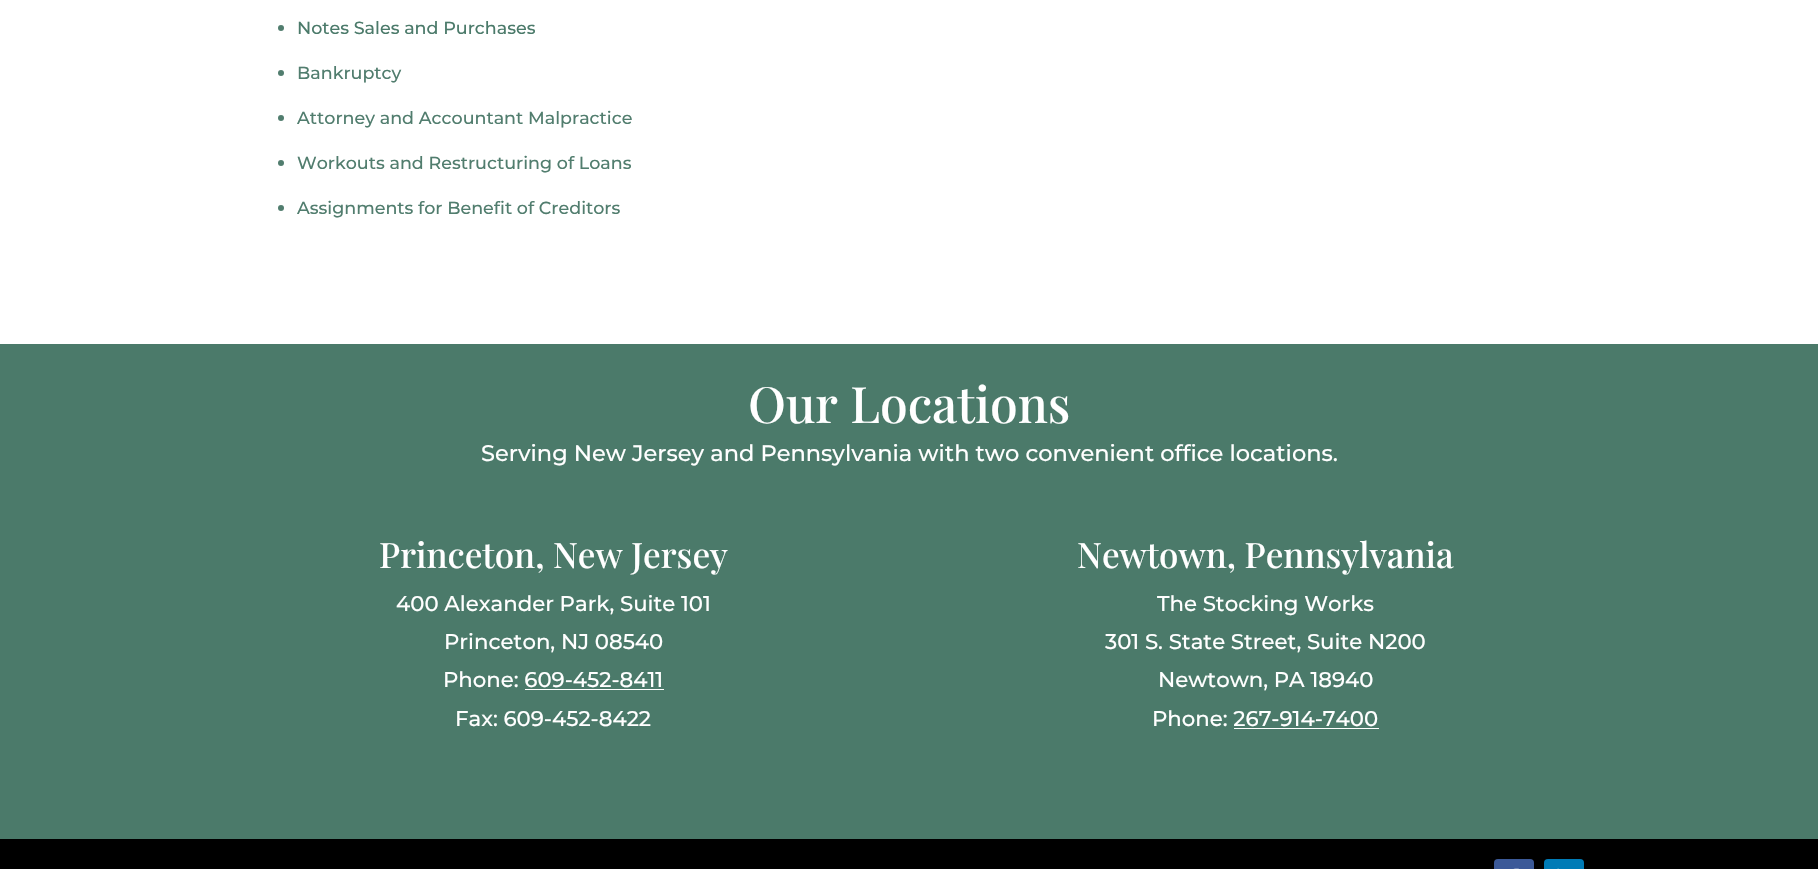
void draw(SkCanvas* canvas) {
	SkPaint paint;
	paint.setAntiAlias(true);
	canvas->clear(0xffffffff);
	paint.setColor(0xff517d6e);
	canvas->drawCircle(281, 28, 3, paint);
	SkFont f1(fontMgr->matchFamilyStyle("Montserrat", SkFontStyle(100, SkFontStyle::kNormal_Width, SkFontStyle::kUpright_Slant)), 17.5);
	f1.setSubpixel(true);
	paint.setColor(0xff4b7a6a);
	canvas->drawString("Notes Sales and Purchases", 297, 34, f1, paint);
	paint.setColor(0xff517d6e);
	canvas->drawCircle(281, 73, 3, paint);
	canvas->drawString("Bankruptcy", 297, 79, f1, paint);
	canvas->drawCircle(281, 118, 3, paint);
	canvas->drawString("Attorney and Accountant Malpractice", 297, 124, f1, paint);
	canvas->drawCircle(281, 163, 3, paint);
	canvas->drawString("Workouts and Restructuring of Loans", 297, 169, f1, paint);
	canvas->drawCircle(281, 208, 3, paint);
	canvas->drawString("Assignments for Benefit of Creditors", 297, 214, f1, paint);
	paint.setColor(0xff4b7a6a);
	canvas->drawRect(SkRect::MakeXYWH(0, 344, 1818, 495), paint);
	SkFont f2(fontMgr->matchFamilyStyle("Playfair Display", SkFontStyle(500, SkFontStyle::kNormal_Width, SkFontStyle::kUpright_Slant)), 50);
	f2.setSubpixel(true);
	paint.setColor(0xffffffff);
	canvas->drawString("Our Locations", 748, 423, f2, paint);
	SkFont f3(fontMgr->matchFamilyStyle("Montserrat", SkFontStyle(100, SkFontStyle::kNormal_Width, SkFontStyle::kUpright_Slant)), 22.5);
	f3.setSubpixel(true);
	canvas->drawString("Serving New Jersey and Pennsylvania with two convenient office locations.", 481, 461, f3, paint);
	SkFont f4(fontMgr->matchFamilyStyle("Playfair Display", SkFontStyle(500, SkFontStyle::kNormal_Width, SkFontStyle::kUpright_Slant)), 35);
	f4.setSubpixel(true);
	canvas->drawString("Princeton, New Jersey", 379, 568, f4, paint);
	SkFont f5(fontMgr->matchFamilyStyle("Montserrat", SkFontStyle(100, SkFontStyle::kNormal_Width, SkFontStyle::kUpright_Slant)), 21.25);
	f5.setSubpixel(true);
	canvas->drawString("400 Alexander Park, Suite 101", 396, 611, f5, paint);
	canvas->drawString("Princeton, NJ 08540", 444, 649, f5, paint);
	canvas->drawString("Phone: 609-452-8411", 443, 687, f5, paint);
	canvas->drawRect(SkRect::MakeXYWH(525, 689, 139, 1), paint);
	canvas->drawString("Fax: 609-452-8422", 455, 726, f5, paint);
	canvas->drawString("Newtown, Pennsylvania", 1077, 568, f4, paint);
	canvas->drawString("The Stocking Works", 1157, 611, f5, paint);
	canvas->drawString("301 S. State Street, Suite N200", 1105, 649, f5, paint);
	canvas->drawString("Newtown, PA 18940", 1158, 687, f5, paint);
	canvas->drawString("Phone: 267-914-7400", 1152, 726, f5, paint);
	canvas->drawRect(SkRect::MakeXYWH(1234, 728, 145, 1), paint);
	paint.setColor(0xff000000);
	canvas->drawRect(SkRect::MakeXYWH(0, 839, 1818, 30), paint);
	paint.setColor(0xff3b5998);
	canvas->drawRoundRect(SkRect::MakeXYWH(1494, 859, 40, 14), 4, 4, paint);
	canvas->drawImageRect(SkImages::DeferredFromEncodedData(SkData::MakeFromFileName("img1.png")), SkRect::MakeXYWH(1513, 868, 6, 1), SkSamplingOptions());
	paint.setColor(0xff007bb6);
	canvas->drawRoundRect(SkRect::MakeXYWH(1544, 859, 40, 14), 4, 4, paint);
	canvas->drawImageRect(SkImages::DeferredFromEncodedData(SkData::MakeFromFileName("img2.png")), SkRect::MakeXYWH(1557, 868, 2, 1), SkSamplingOptions());
}
